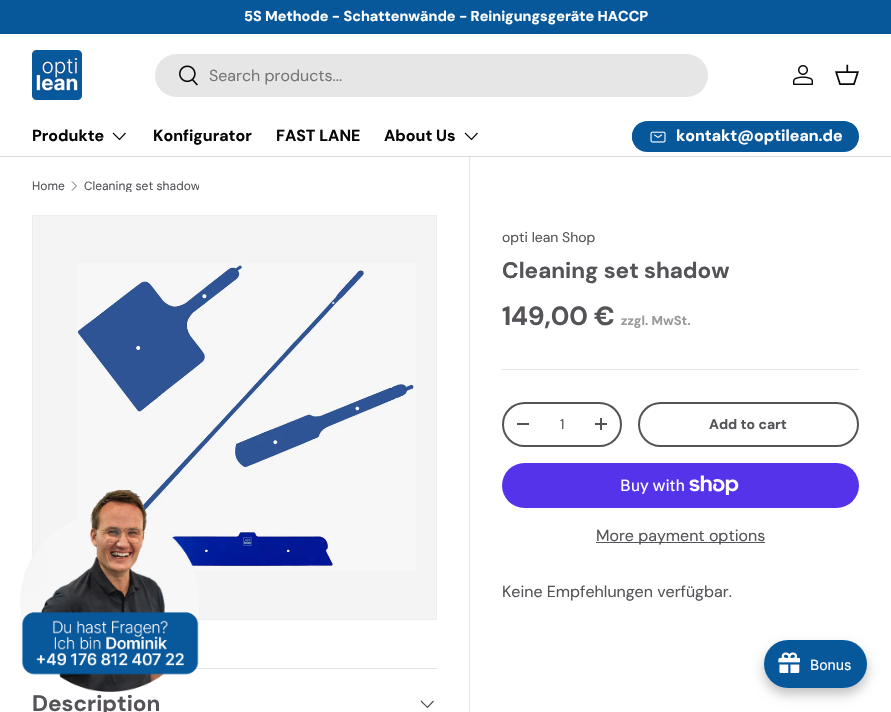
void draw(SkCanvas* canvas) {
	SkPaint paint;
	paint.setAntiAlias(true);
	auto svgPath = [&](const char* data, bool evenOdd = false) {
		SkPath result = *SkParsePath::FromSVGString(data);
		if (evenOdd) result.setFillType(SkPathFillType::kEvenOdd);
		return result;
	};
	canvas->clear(0xffffffff);
	paint.setColor(0xff07589b);
	canvas->drawRect(SkRect::MakeXYWH(0, 0, 891, 34), paint);
	SkFont f1(fontMgr->matchFamilyStyle("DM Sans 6", SkFontStyle::Bold()), 14.4);
	f1.setSubpixel(true);
	paint.setColor(0xffffffff);
	canvas->drawString("5S Methode - Schattenwände - Reinigungsgeräte HACCP", 244, 21, f1, paint);
	paint.setColor(0xffdadada);
	canvas->drawRect(SkRect::MakeXYWH(0, 156, 891, 1), paint);
	canvas->drawImageRect(SkImages::DeferredFromEncodedData(SkData::MakeFromFileName("img1.png")), SkRect::MakeXYWH(32, 50, 50, 50), SkSamplingOptions());
	paint.setColor(0xffe6e6e6);
	canvas->drawRoundRect(SkRect::MakeXYWH(155, 54, 553, 43), 21.5, 21.5, paint);
	canvas->drawImageRect(SkImages::DeferredFromEncodedData(SkData::MakeFromFileName("img2.png")), SkRect::MakeXYWH(179, 65, 19, 21), SkSamplingOptions());
	SkFont f2(fontMgr->matchFamilyStyle("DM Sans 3", SkFontStyle::Normal()), 16);
	f2.setSubpixel(true);
	paint.setColor(0xff777777);
	canvas->drawString("Search products...", 209, 81, f2, paint);
	canvas->drawImageRect(SkImages::DeferredFromEncodedData(SkData::MakeFromFileName("img3.png")), SkRect::MakeXYWH(793, 65, 20, 20), SkSamplingOptions());
	canvas->drawImageRect(SkImages::DeferredFromEncodedData(SkData::MakeFromFileName("img4.png")), SkRect::MakeXYWH(835, 64, 24, 21), SkSamplingOptions());
	SkFont f3(fontMgr->matchFamilyStyle("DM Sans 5", SkFontStyle::Bold()), 16);
	f3.setSubpixel(true);
	paint.setColor(0xff070707);
	canvas->drawString("Produkte", 32, 141, f3, paint);
	paint.setStroke(true);
	paint.setStrokeWidth(1.2);
	canvas->drawPath(svgPath("M125.5 133L119.5 139.5L113 133"), paint);
	paint.setStroke(false);
	canvas->drawString("Konfigurator", 153, 141, f3, paint);
	canvas->drawString("FAST LANE", 276, 141, f3, paint);
	canvas->drawString("About Us", 384, 141, f3, paint);
	paint.setStroke(true);
	canvas->drawPath(svgPath("M477.5 133L471.5 139.5L465 133"), paint);
	canvas->save();
	canvas->clipPath(svgPath("M647.5 121H843.5C852 121 859 128 859 136.5C859 145 852 152 843.5 152H647.5C639 152 632 145 632 136.5C632 128 639 121 647.5 121Z"), true);
	paint.setStroke(false);
	{
		const SkColor colors[] = {0xff2f79b6, 0xff07589b, 0xff07589b};
		const float stops[] = {0.6, 0.6, 1};
		const SkPoint ends[] = {{204, 57}, {841, 216}};
		paint.setShader(SkGradientShader::MakeLinear(ends, colors, stops, 3, SkTileMode::kClamp));
		paint.setAlpha(255);
	}
	canvas->drawRect(SkRect::MakeXYWH(632, 123, 225, 27), paint);
	canvas->restore();
	paint.setStroke(true);
	paint.setStrokeWidth(2);
	paint.setShader(nullptr);
	paint.setColor(0xff07589b);
	canvas->drawRoundRect(SkRect::MakeXYWH(633, 122, 225, 29), 14.5, 14.5, paint);
	canvas->drawImageRect(SkImages::DeferredFromEncodedData(SkData::MakeFromFileName("img5.png")), SkRect::MakeXYWH(650, 131, 16, 12), SkSamplingOptions());
	paint.setStroke(false);
	paint.setColor(0xffffffff);
	canvas->drawString("kontakt@optilean.de", 676, 141, f3, paint);
	SkFont f4(fontMgr->matchFamilyStyle("DM Sans", SkFontStyle::Normal()), 12);
	f4.setSubpixel(true);
	paint.setColor(0xff565358);
	canvas->drawString("Home", 32, 190, f4, paint);
	paint.setStroke(true);
	paint.setStrokeWidth(0.9);
	canvas->drawPath(svgPath("M72 181.5L76.5 186L72 190.5"), paint);
	canvas->save();
	canvas->clipRect(SkRect::MakeXYWH(84, 180, 115, 12));
	paint.setStroke(false);
	canvas->drawString("Cleaning set shadow", 84, 190, f4, paint);
	canvas->restore();
	paint.setColor(0xfff4f4f4);
	canvas->drawRect(SkRect::MakeXYWH(32.5, 215.5, 404, 404), paint);
	paint.setStroke(true);
	paint.setStrokeWidth(1);
	paint.setColor(0xffeeeeee);
	canvas->drawRect(SkRect::MakeXYWH(32.5, 215.5, 404, 404), paint);
	canvas->drawImageRect(SkImages::DeferredFromEncodedData(SkData::MakeFromFileName("img6.png")), SkRect::MakeXYWH(77, 263, 339, 308), SkSamplingOptions());
	paint.setStroke(false);
	paint.setColor(0xffe6e5e6);
	canvas->drawRect(SkRect::MakeXYWH(469, 157, 1, 555), paint);
	SkFont f5(fontMgr->matchFamilyStyle("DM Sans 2", SkFontStyle::Normal()), 14);
	f5.setSubpixel(true);
	paint.setColor(0xff565358);
	canvas->drawString("opti lean Shop", 502, 242, f5, paint);
	SkFont f6(fontMgr->matchFamilyStyle("DM Sans", SkFontStyle::Bold()), 22.5);
	f6.setSubpixel(true);
	canvas->drawString("Cleaning set shadow", 502, 278, f6, paint);
	SkFont f7(fontMgr->matchFamilyStyle("DM Sans 2", SkFontStyle::Bold()), 26.25);
	f7.setSubpixel(true);
	canvas->drawString("149,00 €", 502, 325, f7, paint);
	SkFont f8(fontMgr->matchFamilyStyle("DM Sans 3", SkFontStyle::Bold()), 13);
	f8.setSubpixel(true);
	paint.setColor(0xff999999);
	canvas->drawString("zzgl. MwSt.", 621, 325, f8, paint);
	paint.setColor(0xffe6e5e6);
	canvas->drawRect(SkRect::MakeXYWH(502, 369, 357, 1), paint);
	paint.setStroke(true);
	paint.setStrokeWidth(2);
	paint.setColor(0xff565358);
	canvas->drawRoundRect(SkRect::MakeXYWH(503, 403, 118, 43), 21.5, 21.5, paint);
	paint.setStroke(false);
	canvas->drawRect(SkRect::MakeXYWH(517, 423, 12, 2), paint);
	canvas->drawString("1", 560, 429, f5, paint);
	canvas->drawRect(SkRect::MakeXYWH(595, 423, 12, 2), paint);
	canvas->drawRect(SkRect::MakeXYWH(600, 418, 2, 12), paint);
	paint.setStroke(true);
	canvas->drawRoundRect(SkRect::MakeXYWH(639, 403, 219, 43), 21.5, 21.5, paint);
	SkFont f9(fontMgr->matchFamilyStyle("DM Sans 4", SkFontStyle::Bold()), 14);
	f9.setSubpixel(true);
	paint.setStroke(false);
	canvas->drawString("Add to cart", 709, 429, f9, paint);
	paint.setColor(0xff5433eb);
	canvas->drawRoundRect(SkRect::MakeXYWH(502, 463, 357, 45), 22.5, 22.5, paint);
	SkFont f10(fontMgr->matchFamilyStyle("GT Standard", SkFontStyle::Normal()), 16);
	f10.setSubpixel(true);
	paint.setColor(0xffffffff);
	canvas->drawString("Buy with", 620, 491, f10, paint);
	canvas->drawImageRect(SkImages::DeferredFromEncodedData(SkData::MakeFromFileName("img7.png")), SkRect::MakeXYWH(689, 475, 50, 20), SkSamplingOptions());
	paint.setColor(0xff565358);
	canvas->drawRect(SkRect::MakeXYWH(596, 542, 169, 1), paint);
	canvas->drawString("More payment options", 596, 541, f2, paint);
	canvas->drawString("Keine Empfehlungen verfügbar.", 502, 597, f2, paint);
	paint.setColor(0xffe6e5e6);
	canvas->drawRect(SkRect::MakeXYWH(195, 668, 242, 1), paint);
	paint.setColor(0xff565358);
	canvas->drawString("Description", 32, 711, f6, paint);
	paint.setStroke(true);
	paint.setStrokeWidth(1.2);
	canvas->drawPath(svgPath("M433.5 701L427.5 707.5L421 701"), paint);
	canvas->drawImageRect(SkImages::DeferredFromEncodedData(SkData::MakeFromFileName("img8.png")), SkRect::MakeXYWH(20, 490, 179, 202), SkSamplingOptions());
	paint.setStroke(false);
	paint.setColor(0x40000000);
	paint.setMaskFilter(SkMaskFilter::MakeBlur(kNormal_SkBlurStyle, 6));
	canvas->drawRoundRect(SkRect::MakeXYWH(764, 646, 103, 48), 24, 24, paint);
	paint.setMaskFilter(nullptr);
	paint.setColor(0xff07589b);
	canvas->drawRoundRect(SkRect::MakeXYWH(764, 640, 103, 48), 24, 24, paint);
	canvas->drawImageRect(SkImages::DeferredFromEncodedData(SkData::MakeFromFileName("img9.png")), SkRect::MakeXYWH(778, 652, 22, 21), SkSamplingOptions());
	SkFont f11(fontMgr->matchFamilyStyle("Inter", SkFontStyle::Normal()), 14);
	f11.setSubpixel(true);
	paint.setColor(0xffffffff);
	canvas->drawString("Bonus", 810, 670, f11, paint);
}
